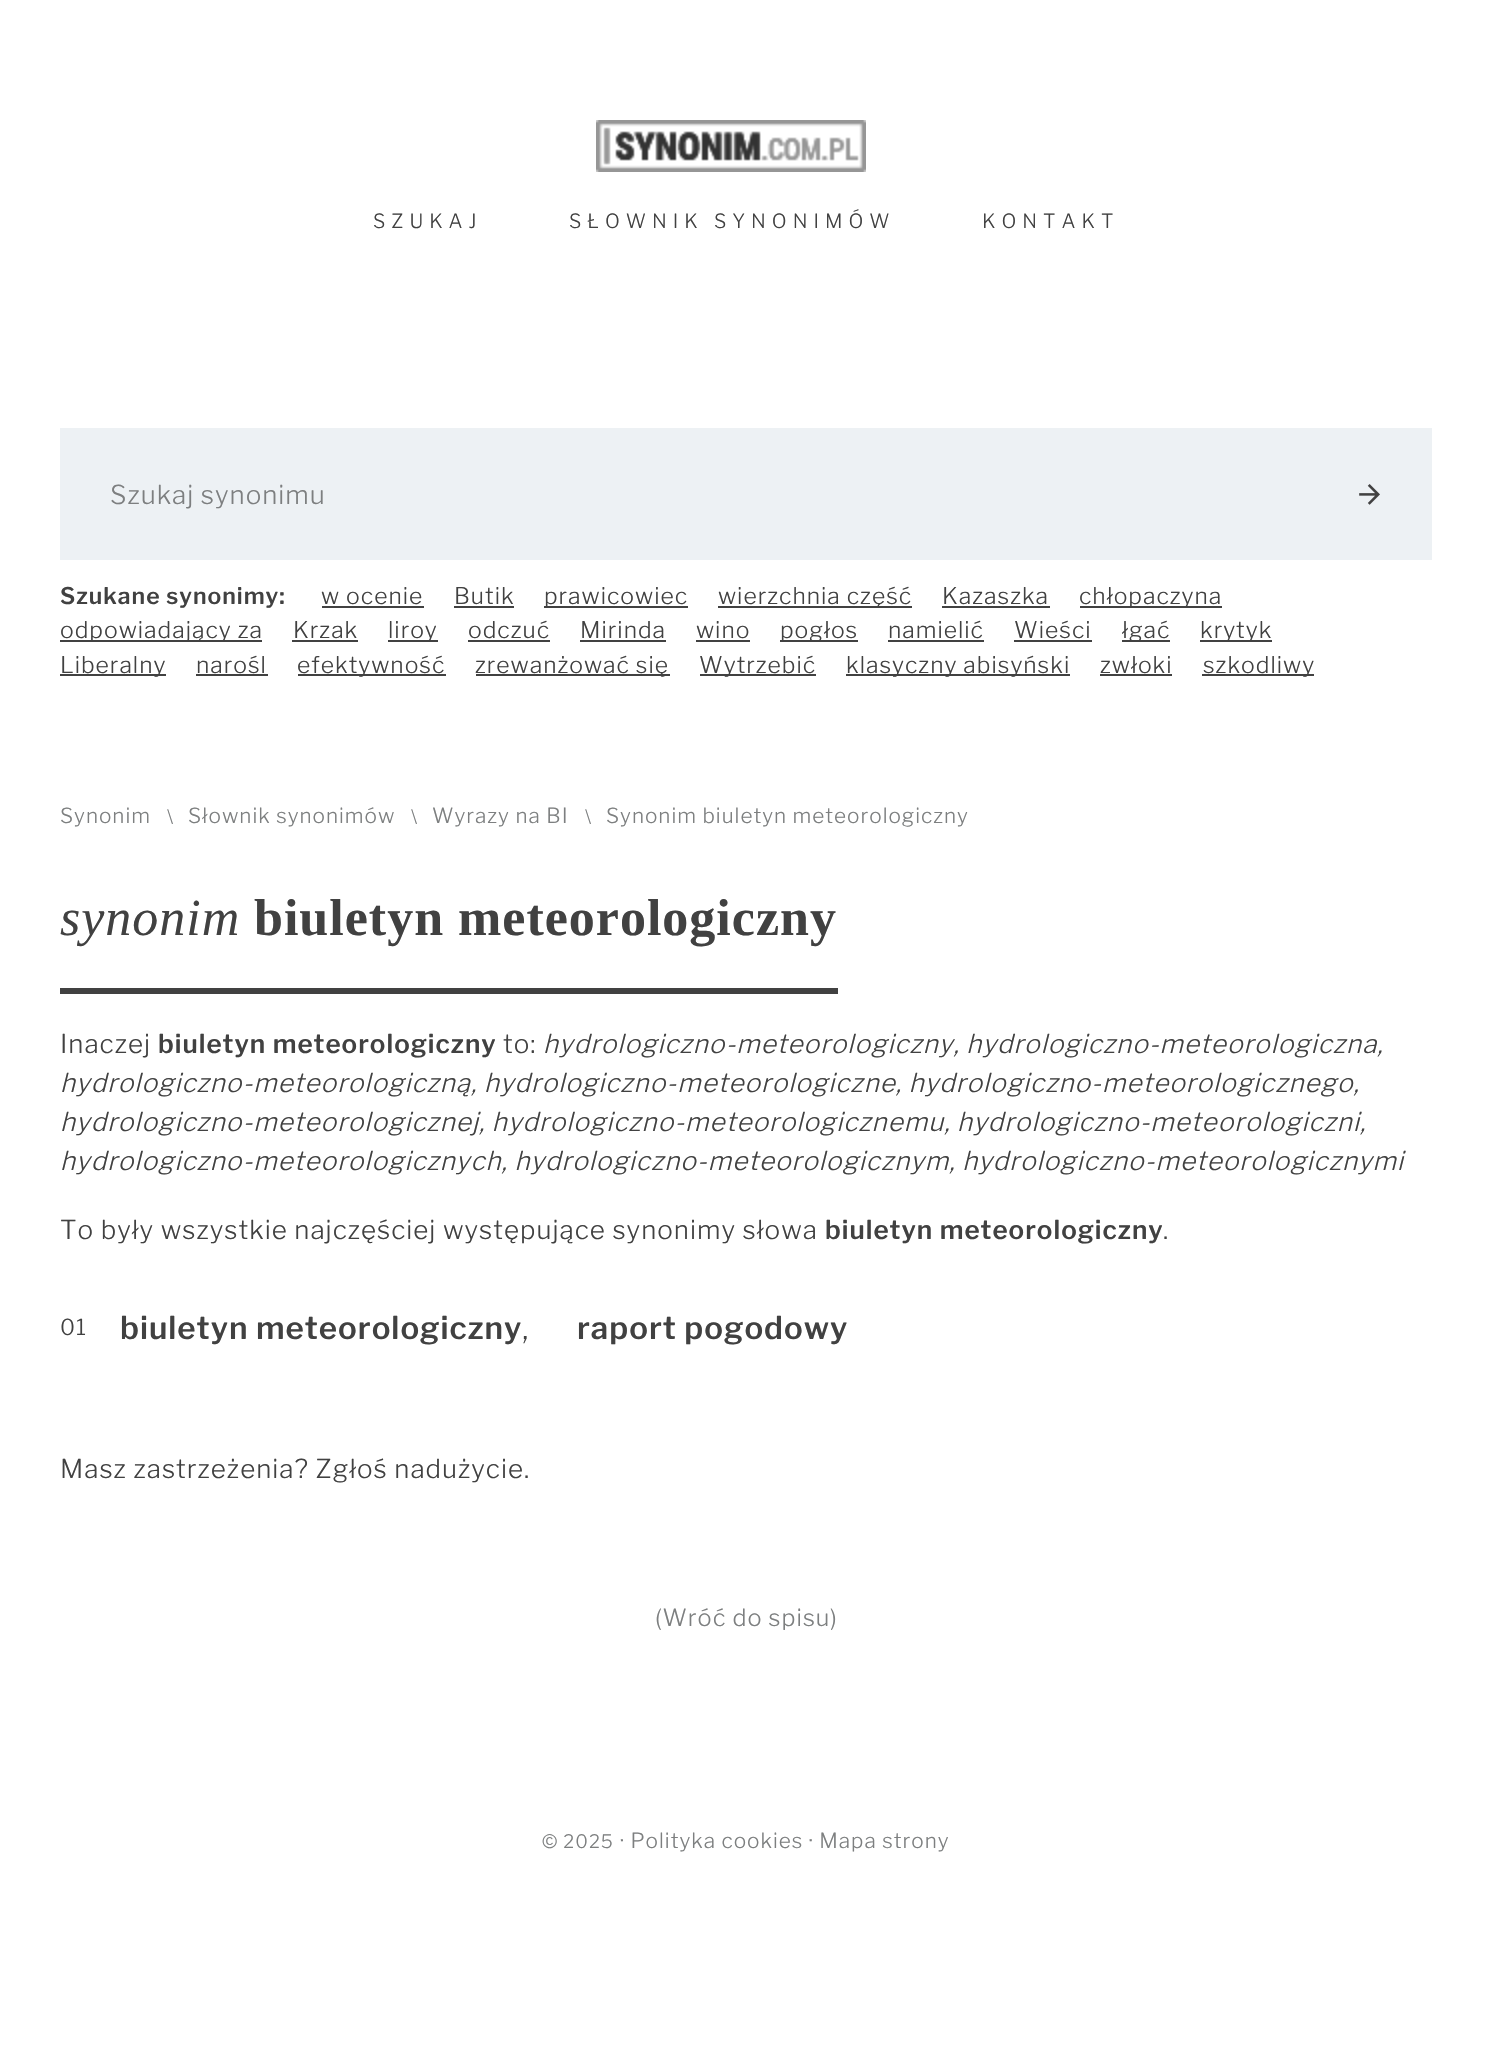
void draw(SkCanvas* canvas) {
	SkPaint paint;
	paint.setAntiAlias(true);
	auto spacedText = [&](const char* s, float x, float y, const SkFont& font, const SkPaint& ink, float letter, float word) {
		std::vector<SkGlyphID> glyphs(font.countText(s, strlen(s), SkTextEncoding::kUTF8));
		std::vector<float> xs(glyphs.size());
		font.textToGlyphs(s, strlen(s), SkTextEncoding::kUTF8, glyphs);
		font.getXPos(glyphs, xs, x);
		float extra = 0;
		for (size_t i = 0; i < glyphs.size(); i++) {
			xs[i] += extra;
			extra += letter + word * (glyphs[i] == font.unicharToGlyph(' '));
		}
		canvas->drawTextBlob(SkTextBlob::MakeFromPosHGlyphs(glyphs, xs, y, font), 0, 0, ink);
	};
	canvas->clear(0xffffffff);
	canvas->drawImageRect(SkImages::DeferredFromEncodedData(SkData::MakeFromFileName("img1.png")), SkRect::MakeXYWH(596, 120, 270, 52), SkSamplingOptions());
	SkFont f1(fontMgr->matchFamilyStyle("Libre Franklin", SkFontStyle(300, SkFontStyle::kNormal_Width, SkFontStyle::kUpright_Slant)), 19.5);
	f1.setSubpixel(true);
	paint.setColor(0xff414141);
	spacedText("SZUKAJ", 373, 228, f1, paint, 6, 0);
	spacedText("SŁOWNIK SYNONIMÓW", 569, 228, f1, paint, 6, 0);
	spacedText("KONTAKT", 982, 228, f1, paint, 6, 0);
	paint.setColor(0xffedf1f4);
	canvas->drawRect(SkRect::MakeXYWH(60, 428, 1372, 132), paint);
	SkFont f2(fontMgr->matchFamilyStyle("Libre Franklin", SkFontStyle(300, SkFontStyle::kNormal_Width, SkFontStyle::kUpright_Slant)), 26);
	f2.setSubpixel(true);
	paint.setColor(0xff7d7f80);
	spacedText("Szukaj synonimu", 110, 504, f2, paint, 1, 0);
	canvas->drawImageRect(SkImages::DeferredFromEncodedData(SkData::MakeFromFileName("img2.png")), SkRect::MakeXYWH(1359, 484, 21, 21), SkSamplingOptions());
	SkFont f3(fontMgr->matchFamilyStyle("Libre Franklin", SkFontStyle(600, SkFontStyle::kNormal_Width, SkFontStyle::kUpright_Slant)), 22.9);
	f3.setSubpixel(true);
	paint.setColor(0xff414141);
	spacedText("Szukane synonimy:", 60, 604, f3, paint, 1, 0);
	SkFont f4(fontMgr->matchFamilyStyle("Libre Franklin", SkFontStyle(300, SkFontStyle::kNormal_Width, SkFontStyle::kUpright_Slant)), 22.9);
	f4.setSubpixel(true);
	spacedText("w ocenie", 321, 604, f4, paint, 1, 0);
	canvas->drawRect(SkRect::MakeXYWH(322, 606, 102, 2), paint);
	spacedText("Butik", 454, 604, f4, paint, 1, 0);
	canvas->drawRect(SkRect::MakeXYWH(454, 606, 60, 2), paint);
	canvas->drawRect(SkRect::MakeXYWH(544, 606, 144, 2), paint);
	spacedText("prawicowiec", 544, 604, f4, paint, 1, 0);
	canvas->drawRect(SkRect::MakeXYWH(718, 606, 194, 2), paint);
	spacedText("wierzchnia część", 718, 604, f4, paint, 1, 0);
	spacedText("Kazaszka", 942, 604, f4, paint, 1, 0);
	canvas->drawRect(SkRect::MakeXYWH(942, 606, 108, 2), paint);
	canvas->drawRect(SkRect::MakeXYWH(1080, 606, 142, 2), paint);
	spacedText("chłopaczyna", 1079, 604, f4, paint, 1, 0);
	canvas->drawRect(SkRect::MakeXYWH(60, 640, 202, 2), paint);
	spacedText("odpowiadający za", 60, 638, f4, paint, 1, 0);
	spacedText("Krzak", 293, 638, f4, paint, 1, 0);
	canvas->drawRect(SkRect::MakeXYWH(292, 640, 66, 2), paint);
	canvas->drawRect(SkRect::MakeXYWH(388, 640, 50, 2), paint);
	spacedText("liroy", 388, 638, f4, paint, 1, 0);
	spacedText("odczuć", 468, 638, f4, paint, 1, 0);
	canvas->drawRect(SkRect::MakeXYWH(468, 640, 82, 2), paint);
	spacedText("Mirinda", 580, 638, f4, paint, 1, 0);
	canvas->drawRect(SkRect::MakeXYWH(580, 640, 86, 2), paint);
	spacedText("wino", 696, 638, f4, paint, 1, 0);
	canvas->drawRect(SkRect::MakeXYWH(696, 640, 54, 2), paint);
	canvas->drawRect(SkRect::MakeXYWH(780, 640, 78, 2), paint);
	spacedText("pogłos", 780, 638, f4, paint, 1, 0);
	spacedText("namielić", 888, 638, f4, paint, 1, 0);
	canvas->drawRect(SkRect::MakeXYWH(888, 640, 96, 2), paint);
	spacedText("Wieści", 1014, 638, f4, paint, 1, 0);
	canvas->drawRect(SkRect::MakeXYWH(1014, 640, 78, 2), paint);
	canvas->drawRect(SkRect::MakeXYWH(1122, 640, 48, 2), paint);
	spacedText("łgać", 1122, 638, f4, paint, 1, 0);
	canvas->drawRect(SkRect::MakeXYWH(1200, 640, 72, 2), paint);
	spacedText("krytyk", 1200, 638, f4, paint, 1, 0);
	canvas->drawRect(SkRect::MakeXYWH(60, 674, 106, 2), paint);
	spacedText("Liberalny", 60, 673, f4, paint, 1, 0);
	spacedText("narośl", 196, 673, f4, paint, 1, 0);
	canvas->drawRect(SkRect::MakeXYWH(196, 674, 72, 2), paint);
	canvas->drawRect(SkRect::MakeXYWH(298, 674, 148, 2), paint);
	spacedText("efektywność", 297, 673, f4, paint, 1, 0);
	canvas->drawRect(SkRect::MakeXYWH(476, 674, 194, 2), paint);
	spacedText("zrewanżować się", 475, 673, f4, paint, 1, 0);
	canvas->drawRect(SkRect::MakeXYWH(700, 674, 116, 2), paint);
	spacedText("Wytrzebić", 699, 673, f4, paint, 1, 0);
	canvas->drawRect(SkRect::MakeXYWH(846, 674, 224, 2), paint);
	spacedText("klasyczny abisyński", 846, 673, f4, paint, 1, 0);
	spacedText("zwłoki", 1100, 673, f4, paint, 1, 0);
	canvas->drawRect(SkRect::MakeXYWH(1100, 674, 72, 2), paint);
	canvas->drawRect(SkRect::MakeXYWH(1202, 674, 112, 2), paint);
	spacedText("szkodliwy", 1203, 673, f4, paint, 1, 0);
	SkFont f5(fontMgr->matchFamilyStyle("Libre Franklin", SkFontStyle(300, SkFontStyle::kNormal_Width, SkFontStyle::kUpright_Slant)), 20.75);
	f5.setSubpixel(true);
	paint.setColor(0xff7d7f80);
	spacedText("Synonim", 60, 823, f5, paint, 1, 0);
	SkFont f6(fontMgr->matchFamilyStyle("Libre Franklin", SkFontStyle(300, SkFontStyle::kNormal_Width, SkFontStyle::kUpright_Slant)), 18.5);
	f6.setSubpixel(true);
	spacedText("\\", 167, 823, f6, paint, 1, 0);
	spacedText("Słownik synonimów", 188, 823, f5, paint, 1, 0);
	spacedText("\\", 411, 823, f6, paint, 1, 0);
	spacedText("Wyrazy na BI", 432, 823, f5, paint, 1, 0);
	spacedText("\\", 585, 823, f6, paint, 1, 0);
	spacedText("Synonim biuletyn meteorologiczny", 606, 823, f5, paint, 1, 0);
	paint.setColor(0xff414141);
	canvas->drawRect(SkRect::MakeXYWH(60, 988, 778, 6), paint);
	SkFont f7(fontMgr->matchFamilyStyle("Liberation Serif", SkFontStyle::Italic()), 52);
	f7.setSubpixel(true);
	spacedText("synonim", 60, 935, f7, paint, 1, 0);
	SkFont f8(fontMgr->matchFamilyStyle("Liberation Serif", SkFontStyle::Bold()), 52);
	f8.setSubpixel(true);
	spacedText("biuletyn meteorologiczny", 254, 935, f8, paint, 1, 0);
	spacedText("Inaczej", 60, 1053, f2, paint, 1, 0);
	SkFont f9(fontMgr->matchFamilyStyle("Libre Franklin", SkFontStyle(600, SkFontStyle::kNormal_Width, SkFontStyle::kUpright_Slant)), 26);
	f9.setSubpixel(true);
	spacedText("biuletyn meteorologiczny", 158, 1053, f9, paint, 1, 0);
	spacedText("to:", 503, 1053, f2, paint, 1, 0);
	SkFont f10(fontMgr->matchFamilyStyle("Libre Franklin", SkFontStyle(300, SkFontStyle::kNormal_Width, SkFontStyle::kItalic_Slant)), 26);
	f10.setSubpixel(true);
	spacedText("hydrologiczno-meteorologiczny, hydrologiczno-meteorologiczna,", 543, 1053, f10, paint, 1, 0);
	spacedText("hydrologiczno-meteorologiczną, hydrologiczno-meteorologiczne, hydrologiczno-meteorologicznego,", 60, 1092, f10, paint, 1, 0);
	spacedText("hydrologiczno-meteorologicznej, hydrologiczno-meteorologicznemu, hydrologiczno-meteorologiczni,", 60, 1131, f10, paint, 1, 0);
	spacedText("hydrologiczno-meteorologicznych, hydrologiczno-meteorologicznym, hydrologiczno-meteorologicznymi", 60, 1170, f10, paint, 1, 0);
	spacedText("To były wszystkie najczęściej występujące synonimy słowa", 60, 1239, f2, paint, 1, 0);
	spacedText("biuletyn meteorologiczny", 825, 1239, f9, paint, 1, 0);
	spacedText(".", 1163, 1239, f2, paint, 1, 0);
	SkFont f11(fontMgr->matchFamilyStyle("Libre Franklin", SkFontStyle(300, SkFontStyle::kNormal_Width, SkFontStyle::kUpright_Slant)), 22);
	f11.setSubpixel(true);
	spacedText("01", 60, 1335, f11, paint, 1, 0);
	SkFont f12(fontMgr->matchFamilyStyle("Libre Franklin", SkFontStyle(600, SkFontStyle::kNormal_Width, SkFontStyle::kUpright_Slant)), 31.25);
	f12.setSubpixel(true);
	spacedText("biuletyn meteorologiczny", 120, 1339, f12, paint, 1, 0);
	spacedText("raport pogodowy", 577, 1339, f12, paint, 1, 0);
	SkFont f13(fontMgr->matchFamilyStyle("Libre Franklin", SkFontStyle(300, SkFontStyle::kNormal_Width, SkFontStyle::kUpright_Slant)), 31.25);
	f13.setSubpixel(true);
	spacedText(",", 522, 1339, f13, paint, 1, 0);
	spacedText("Masz zastrzeżenia? Zgłoś nadużycie.", 60, 1478, f2, paint, 1, 0);
	SkFont f14(fontMgr->matchFamilyStyle("Libre Franklin", SkFontStyle(300, SkFontStyle::kNormal_Width, SkFontStyle::kUpright_Slant)), 23.5);
	f14.setSubpixel(true);
	paint.setColor(0xff7d7f80);
	spacedText("(Wróć do spisu)", 655, 1626, f14, paint, 1, 0);
	spacedText("© 2025", 542, 1848, f6, paint, 1, 0);
	spacedText("· Polityka cookies · Mapa strony", 620, 1848, f5, paint, 1, 0);
}
